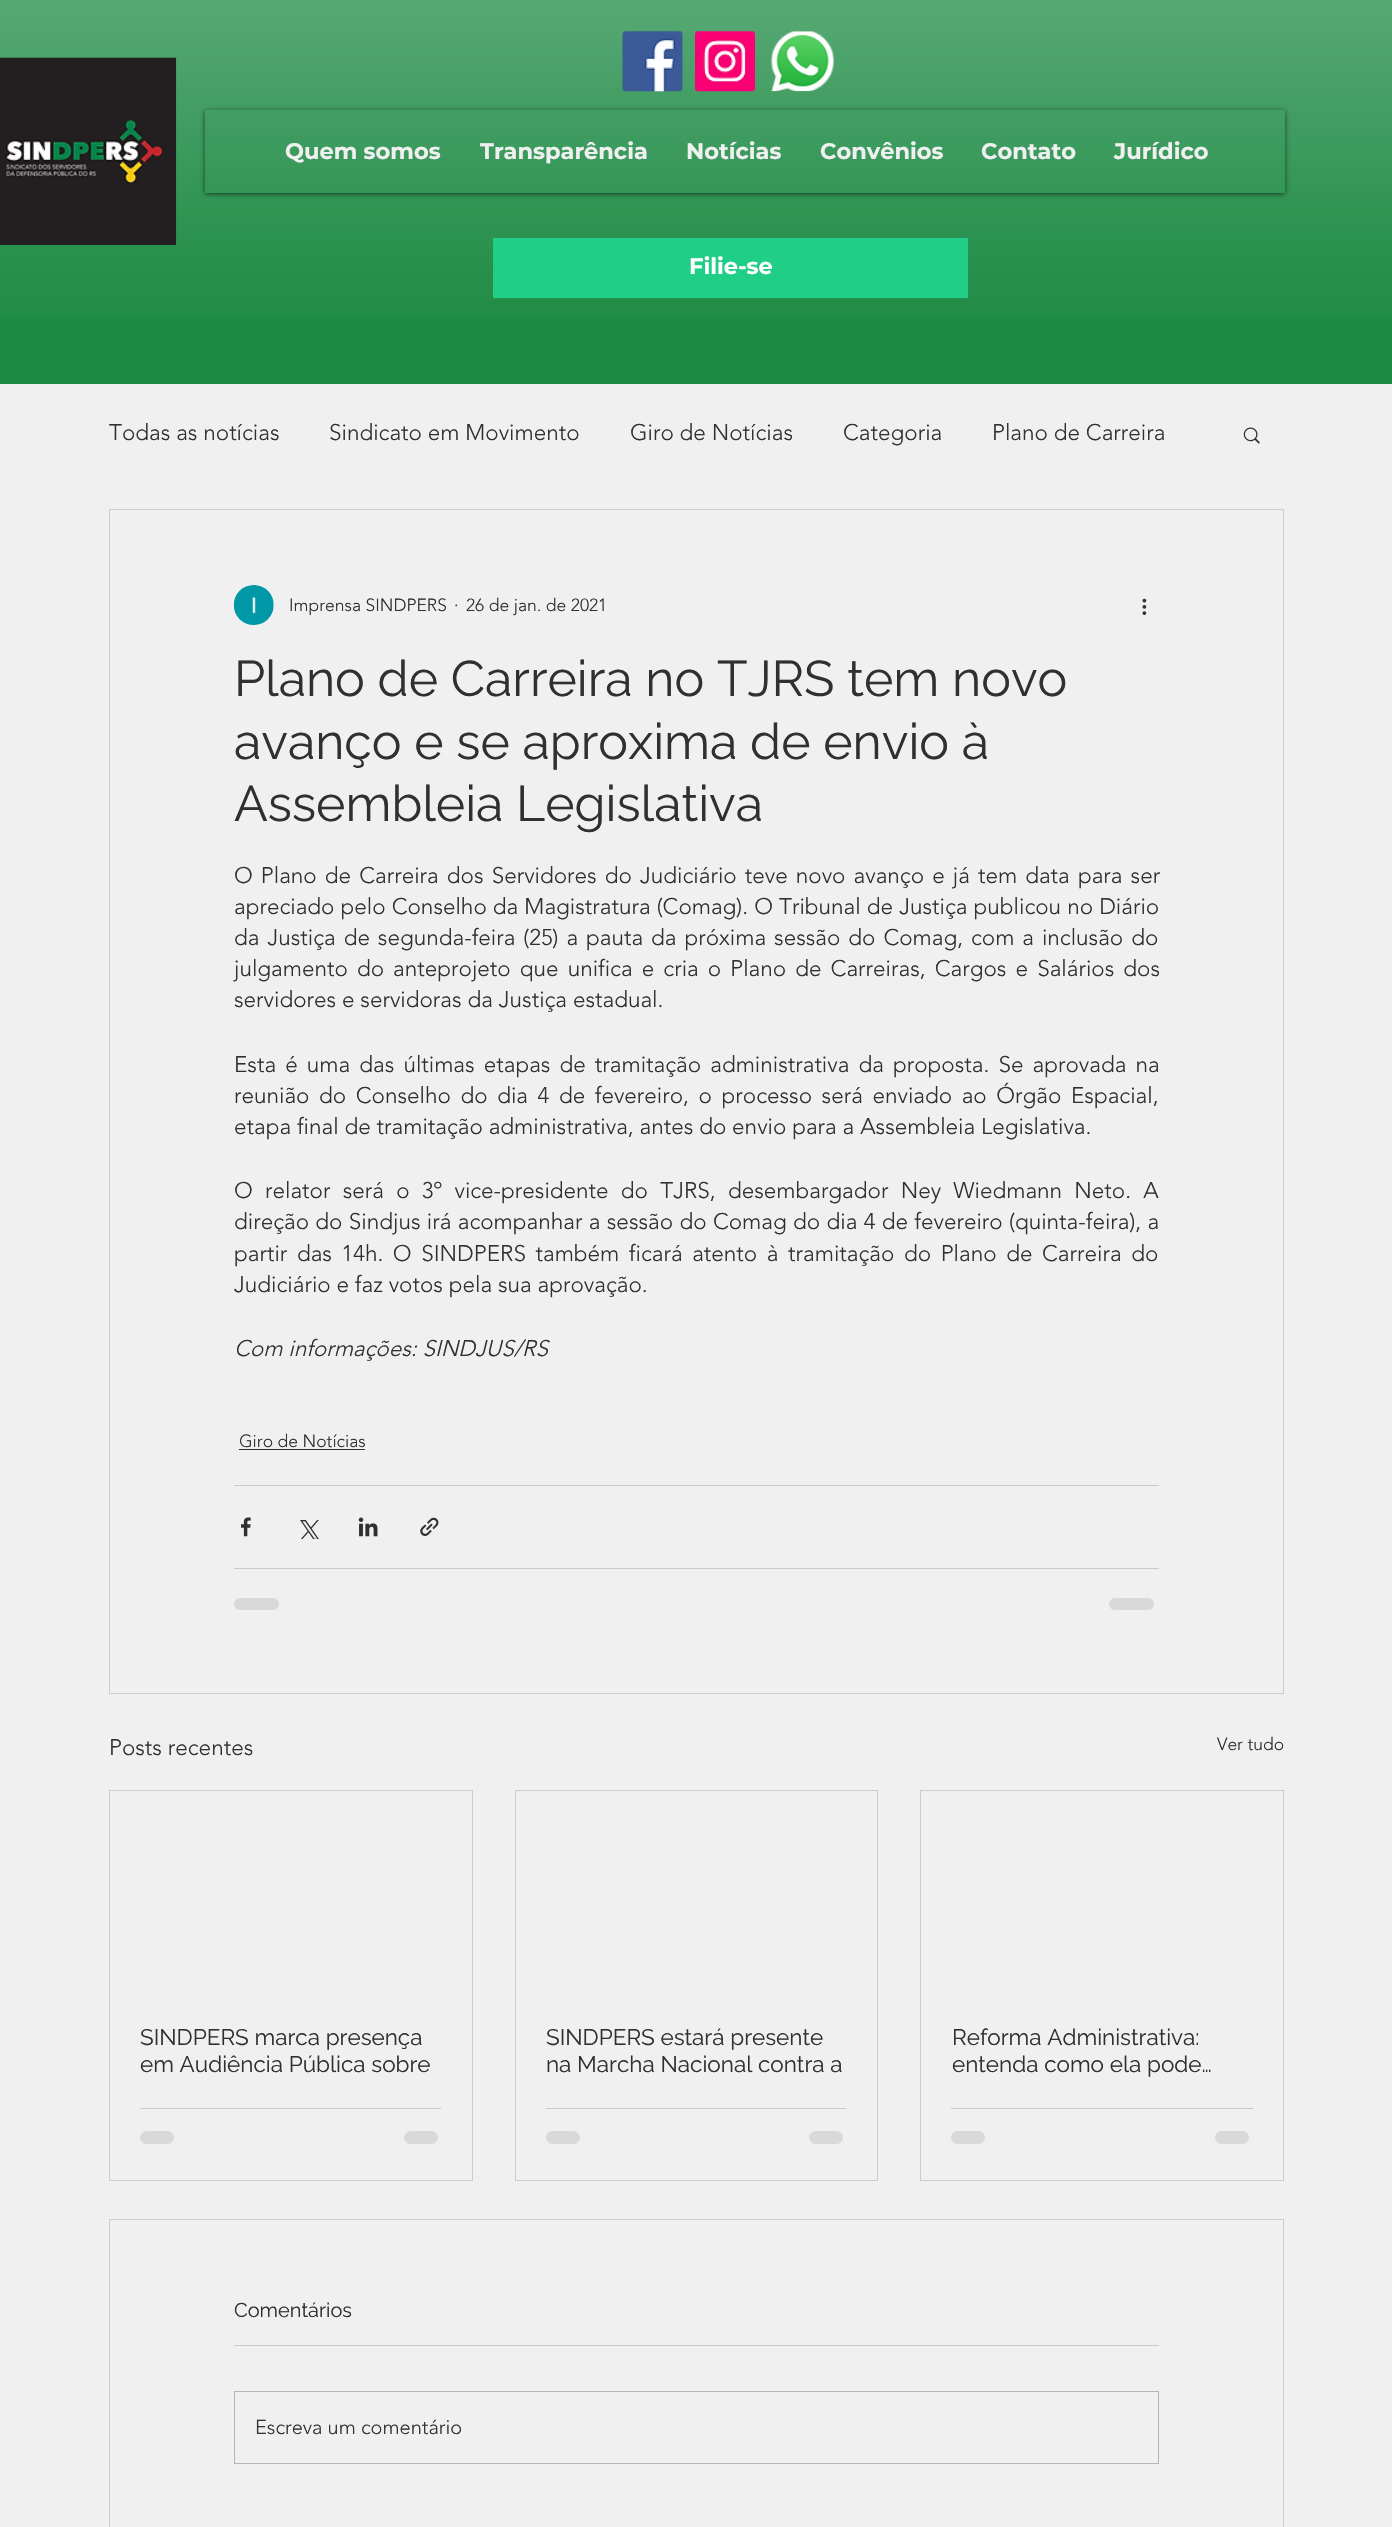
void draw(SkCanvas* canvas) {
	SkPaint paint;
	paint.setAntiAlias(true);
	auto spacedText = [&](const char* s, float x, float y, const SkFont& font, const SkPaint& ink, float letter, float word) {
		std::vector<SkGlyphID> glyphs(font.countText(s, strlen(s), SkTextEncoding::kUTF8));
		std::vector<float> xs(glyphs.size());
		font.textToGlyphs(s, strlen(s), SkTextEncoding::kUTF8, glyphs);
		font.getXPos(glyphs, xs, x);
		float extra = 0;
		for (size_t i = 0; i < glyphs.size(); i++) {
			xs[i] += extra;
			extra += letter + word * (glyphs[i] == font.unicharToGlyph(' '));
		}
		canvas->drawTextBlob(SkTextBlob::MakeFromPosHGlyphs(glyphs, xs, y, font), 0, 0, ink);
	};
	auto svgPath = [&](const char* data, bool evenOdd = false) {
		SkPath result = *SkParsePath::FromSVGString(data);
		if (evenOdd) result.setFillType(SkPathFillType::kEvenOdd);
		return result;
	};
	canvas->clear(0xfff0f0f0);
	paint.setColor(0xff1c8a43);
	canvas->drawRect(SkRect::MakeXYWH(0, 0, 1392, 384), paint);
	canvas->drawImageRect(SkImages::DeferredFromEncodedData(SkData::MakeFromFileName("img1.png")), SkRect::MakeXYWH(0, 0, 1392, 317), SkSamplingOptions());
	canvas->drawImageRect(SkImages::DeferredFromEncodedData(SkData::MakeFromFileName("img2.png")), SkRect::MakeXYWH(0, 57, 177, 188), SkSamplingOptions());
	canvas->drawImageRect(SkImages::DeferredFromEncodedData(SkData::MakeFromFileName("img3.png")), SkRect::MakeXYWH(622, 31, 61, 61), SkSamplingOptions());
	canvas->drawImageRect(SkImages::DeferredFromEncodedData(SkData::MakeFromFileName("img4.png")), SkRect::MakeXYWH(695, 31, 60, 61), SkSamplingOptions());
	canvas->drawImageRect(SkImages::DeferredFromEncodedData(SkData::MakeFromFileName("img5.png")), SkRect::MakeXYWH(771, 31, 63, 61), SkSamplingOptions());
	canvas->save();
	canvas->clipPath(svgPath("M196 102H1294V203H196ZM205 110H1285V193H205Z", true), true);
	paint.setColor(0x99000000);
	paint.setMaskFilter(SkMaskFilter::MakeBlur(kNormal_SkBlurStyle, 2.5));
	canvas->drawRect(SkRect::MakeXYWH(205, 111, 1080, 83), paint);
	paint.setMaskFilter(nullptr);
	canvas->restore();
	SkFont f1(fontMgr->matchFamilyStyle("Montserrat", SkFontStyle::Bold()), 22.5);
	f1.setSubpixel(true);
	paint.setColor(0xfff0f0f0);
	canvas->drawString("Quem somos", 285, 159, f1, paint);
	canvas->drawString("Transparência", 480, 159, f1, paint);
	canvas->drawString("Notícias", 686, 159, f1, paint);
	canvas->drawString("Convênios", 820, 159, f1, paint);
	canvas->drawString("Contato", 981, 159, f1, paint);
	canvas->drawString("Jurídico", 1114, 159, f1, paint);
	paint.setColor(0xff20ce88);
	canvas->drawRect(SkRect::MakeXYWH(493, 238, 475, 60), paint);
	paint.setColor(0xffffffff);
	canvas->drawString("Filie-se", 689, 274, f1, paint);
	SkFont f2(fontMgr->matchFamilyStyle("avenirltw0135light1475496", SkFontStyle(300, SkFontStyle::kNormal_Width, SkFontStyle::kUpright_Slant)), 22.5);
	f2.setSubpixel(true);
	paint.setColor(0xff303030);
	canvas->drawString("Todas as notícias", 109, 440, f2, paint);
	canvas->drawString("Sindicato em Movimento", 329, 440, f2, paint);
	canvas->drawString("Giro de Notícias", 630, 440, f2, paint);
	canvas->drawString("Categoria", 843, 440, f2, paint);
	canvas->drawString("Plano de Carreira", 992, 440, f2, paint);
	canvas->drawImageRect(SkImages::DeferredFromEncodedData(SkData::MakeFromFileName("img6.png")), SkRect::MakeXYWH(1243, 427, 17, 17), SkSamplingOptions());
	paint.setStroke(true);
	paint.setStrokeWidth(1);
	paint.setColor(0xffcccccc);
	canvas->drawRect(SkRect::MakeXYWH(109.5, 509.5, 1174, 1184), paint);
	canvas->drawImageRect(SkImages::DeferredFromEncodedData(SkData::MakeFromFileName("img7.png")), SkRect::MakeXYWH(233, 585, 41, 40), SkSamplingOptions());
	SkFont f3(fontMgr->matchFamilyStyle("avenirltw0135light1475496", SkFontStyle(300, SkFontStyle::kNormal_Width, SkFontStyle::kUpright_Slant)), 17.5);
	f3.setSubpixel(true);
	paint.setStroke(false);
	paint.setColor(0xff303030);
	canvas->drawString("Imprensa SINDPERS", 289, 611, f3, paint);
	canvas->drawString("·", 454, 611, f3, paint);
	canvas->drawString("26 de jan. de 2021", 466, 611, f3, paint);
	canvas->drawImageRect(SkImages::DeferredFromEncodedData(SkData::MakeFromFileName("img8.png")), SkRect::MakeXYWH(1142, 598, 5, 17), SkSamplingOptions());
	SkFont f4(fontMgr->matchFamilyStyle("Raleway", SkFontStyle::Normal()), 50);
	f4.setSubpixel(true);
	canvas->drawString("Plano de Carreira no TJRS tem novo", 234, 696, f4, paint);
	canvas->drawString("avanço e se aproxima de envio à", 234, 759, f4, paint);
	canvas->drawString("Assembleia Legislativa", 234, 821, f4, paint);
	spacedText("O Plano de Carreira dos Servidores do Judiciário teve novo avanço e já tem data para ser", 234, 883, f2, paint, 0, 2.25);
	spacedText("apreciado pelo Conselho da Magistratura (Comag). O Tribunal de Justiça publicou no Diário", 234, 914, f2, paint, 0, 0.25);
	spacedText("da Justiça de segunda-feira (25) a pauta da próxima sessão do Comag, com a inclusão do", 234, 945, f2, paint, 0, 2.1);
	spacedText("julgamento do anteprojeto que unifica e cria o Plano de Carreiras, Cargos e Salários dos", 234, 976, f2, paint, 0, 3.25);
	canvas->drawString("servidores e servidoras da Justiça estadual.", 234, 1007, f2, paint);
	spacedText("Esta é uma das últimas etapas de tramitação administrativa da proposta. Se aprovada na", 234, 1072, f2, paint, 0, 3.25);
	spacedText("reunião do Conselho do dia 4 de fevereiro, o processo será enviado ao Órgão Espacial,", 234, 1103, f2, paint, 0, 3.75);
	canvas->drawString("etapa final de tramitação administrativa, antes do envio para a Assembleia Legislativa.", 234, 1134, f2, paint);
	spacedText("O relator será o 3º vice-presidente do TJRS, desembargador Ney Wiedmann Neto. A", 234, 1198, f2, paint, 0, 6.4);
	spacedText("direção do Sindjus irá acompanhar a sessão do Comag do dia 4 de fevereiro (quinta-feira), a", 234, 1229, f2, paint, 0, 0.5);
	spacedText("partir das 14h. O SINDPERS também ficará atento à tramitação do Plano de Carreira do", 234, 1261, f2, paint, 0, 3.75);
	canvas->drawString("Judiciário e faz votos pela sua aprovação.", 234, 1292, f2, paint);
	SkFont f5(fontMgr->matchFamilyStyle("avenirltw0135light1475496", SkFontStyle(300, SkFontStyle::kNormal_Width, SkFontStyle::kItalic_Slant)), 22.5);
	f5.setSubpixel(true);
	canvas->drawString("Com informações: SINDJUS/RS", 234, 1356, f5, paint);
	canvas->drawString("Giro de Notícias", 239, 1447, f3, paint);
	canvas->drawRect(SkRect::MakeXYWH(239, 1449, 126, 1), paint);
	paint.setColor(0xffcacaca);
	canvas->drawRect(SkRect::MakeXYWH(234, 1485, 925, 1), paint);
	canvas->drawImageRect(SkImages::DeferredFromEncodedData(SkData::MakeFromFileName("img9.png")), SkRect::MakeXYWH(241, 1517, 10, 20), SkSamplingOptions());
	canvas->drawImageRect(SkImages::DeferredFromEncodedData(SkData::MakeFromFileName("img10.png")), SkRect::MakeXYWH(300, 1520, 19, 19), SkSamplingOptions());
	canvas->drawImageRect(SkImages::DeferredFromEncodedData(SkData::MakeFromFileName("img11.png")), SkRect::MakeXYWH(358, 1517, 20, 20), SkSamplingOptions());
	canvas->drawImageRect(SkImages::DeferredFromEncodedData(SkData::MakeFromFileName("img12.png")), SkRect::MakeXYWH(420, 1517, 19, 19), SkSamplingOptions());
	canvas->drawRect(SkRect::MakeXYWH(234, 1568, 925, 1), paint);
	paint.setColor(0xffd9d9d9);
	canvas->drawRoundRect(SkRect::MakeXYWH(234, 1598, 45, 12), 6, 6, paint);
	canvas->drawRoundRect(SkRect::MakeXYWH(1109, 1598, 45, 12), 6, 6, paint);
	paint.setColor(0xff303030);
	canvas->drawString("Posts recentes", 109, 1755, f2, paint);
	canvas->drawString("Ver tudo", 1217, 1750, f3, paint);
	paint.setStroke(true);
	paint.setColor(0xffcccccc);
	canvas->drawRect(SkRect::MakeXYWH(109.5, 1790.5, 363, 390), paint);
	SkFont f6(fontMgr->matchFamilyStyle("Raleway", SkFontStyle::Normal()), 22.5);
	f6.setSubpixel(true);
	paint.setStroke(false);
	paint.setColor(0xff303030);
	canvas->drawString("SINDPERS marca presença", 140, 2045, f6, paint);
	canvas->drawString("em Audiência Pública sobre", 140, 2072, f6, paint);
	paint.setColor(0xffcacaca);
	canvas->drawRect(SkRect::MakeXYWH(140, 2108, 301, 1), paint);
	paint.setColor(0xffd9d9d9);
	canvas->drawRoundRect(SkRect::MakeXYWH(140, 2131, 34, 13), 6.5, 6.5, paint);
	canvas->drawRoundRect(SkRect::MakeXYWH(404, 2131, 34, 13), 6.5, 6.5, paint);
	paint.setStroke(true);
	paint.setColor(0xffcccccc);
	canvas->drawRect(SkRect::MakeXYWH(515.5, 1790.5, 362, 390), paint);
	paint.setStroke(false);
	paint.setColor(0xff303030);
	canvas->drawString("SINDPERS estará presente", 546, 2045, f6, paint);
	canvas->drawString("na Marcha Nacional contra a", 546, 2072, f6, paint);
	paint.setColor(0xffcacaca);
	canvas->drawRect(SkRect::MakeXYWH(546, 2108, 300, 1), paint);
	paint.setColor(0xffd9d9d9);
	canvas->drawRoundRect(SkRect::MakeXYWH(546, 2131, 34, 13), 6.5, 6.5, paint);
	canvas->drawRoundRect(SkRect::MakeXYWH(809, 2131, 34, 13), 6.5, 6.5, paint);
	paint.setStroke(true);
	paint.setColor(0xffcccccc);
	canvas->drawRect(SkRect::MakeXYWH(920.5, 1790.5, 363, 390), paint);
	paint.setStroke(false);
	paint.setColor(0xff303030);
	canvas->drawString("Reforma Administrativa:", 952, 2045, f6, paint);
	canvas->drawString("entenda como ela pode…", 952, 2072, f6, paint);
	paint.setColor(0xffcacaca);
	canvas->drawRect(SkRect::MakeXYWH(951, 2108, 302, 1), paint);
	paint.setColor(0xffd9d9d9);
	canvas->drawRoundRect(SkRect::MakeXYWH(951, 2131, 34, 13), 6.5, 6.5, paint);
	canvas->drawRoundRect(SkRect::MakeXYWH(1215, 2131, 34, 13), 6.5, 6.5, paint);
	paint.setStroke(true);
	paint.setColor(0xffcccccc);
	canvas->drawRect(SkRect::MakeXYWH(109.5, 2219.5, 1174, 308), paint);
	SkFont f7(fontMgr->matchFamilyStyle("Raleway", SkFontStyle::Normal()), 20);
	f7.setSubpixel(true);
	paint.setStroke(false);
	paint.setColor(0xff303030);
	canvas->drawString("Comentários", 234, 2317, f7, paint);
	paint.setColor(0xffcacaca);
	canvas->drawRect(SkRect::MakeXYWH(234, 2345, 925, 1), paint);
	paint.setStroke(true);
	paint.setColor(0xffb6b6b6);
	canvas->drawRect(SkRect::MakeXYWH(234.5, 2391.5, 924, 72), paint);
	SkFont f8(fontMgr->matchFamilyStyle("avenirltw0135light1475496", SkFontStyle(300, SkFontStyle::kNormal_Width, SkFontStyle::kUpright_Slant)), 20);
	f8.setSubpixel(true);
	paint.setStroke(false);
	paint.setColor(0xff303030);
	canvas->drawString("Escreva um comentário", 255, 2434, f8, paint);
}
